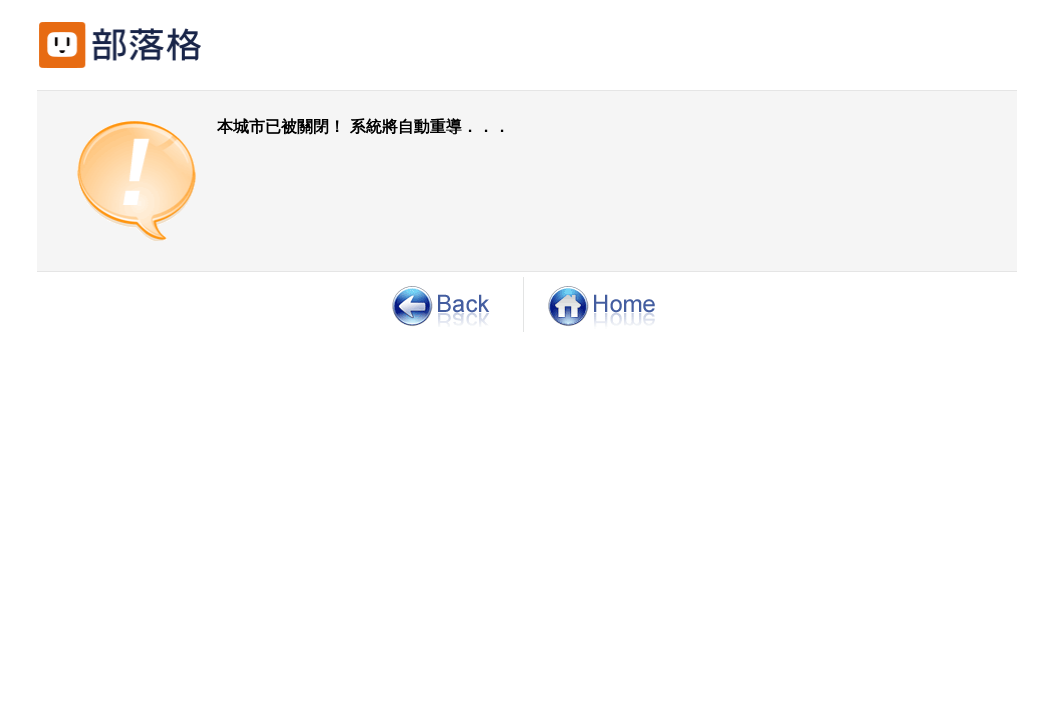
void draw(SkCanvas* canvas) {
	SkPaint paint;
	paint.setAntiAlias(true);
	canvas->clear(0xffffffff);
	canvas->drawImageRect(SkImages::DeferredFromEncodedData(SkData::MakeFromFileName("img1.png")), SkRect::MakeXYWH(39, 22, 162, 46), SkSamplingOptions());
	paint.setColor(0xfff5f5f5);
	canvas->drawRect(SkRect::MakeXYWH(37, 91, 980, 180), paint);
	canvas->drawImageRect(SkImages::DeferredFromEncodedData(SkData::MakeFromFileName("img2.png")), SkRect::MakeXYWH(77, 121, 119, 120), SkSamplingOptions());
	paint.setColor(0xffe5e5e5);
	canvas->drawRect(SkRect::MakeXYWH(37, 90, 980, 1), paint);
	canvas->drawRect(SkRect::MakeXYWH(37, 271, 980, 1), paint);
	SkFont f1(fontMgr->matchFamilyStyle("WenQuanYi Zen Hei", SkFontStyle::Bold()), 16);
	f1.setSubpixel(true);
	paint.setColor(0xff000000);
	canvas->drawString("本城市已被關閉！ 系統將自動重導．．．", 217, 132, f1, paint);
	canvas->drawImageRect(SkImages::DeferredFromEncodedData(SkData::MakeFromFileName("img3.png")), SkRect::MakeXYWH(392, 286, 98, 41), SkSamplingOptions());
	canvas->drawImageRect(SkImages::DeferredFromEncodedData(SkData::MakeFromFileName("img4.png")), SkRect::MakeXYWH(523, 277, 132, 55), SkSamplingOptions());
}
